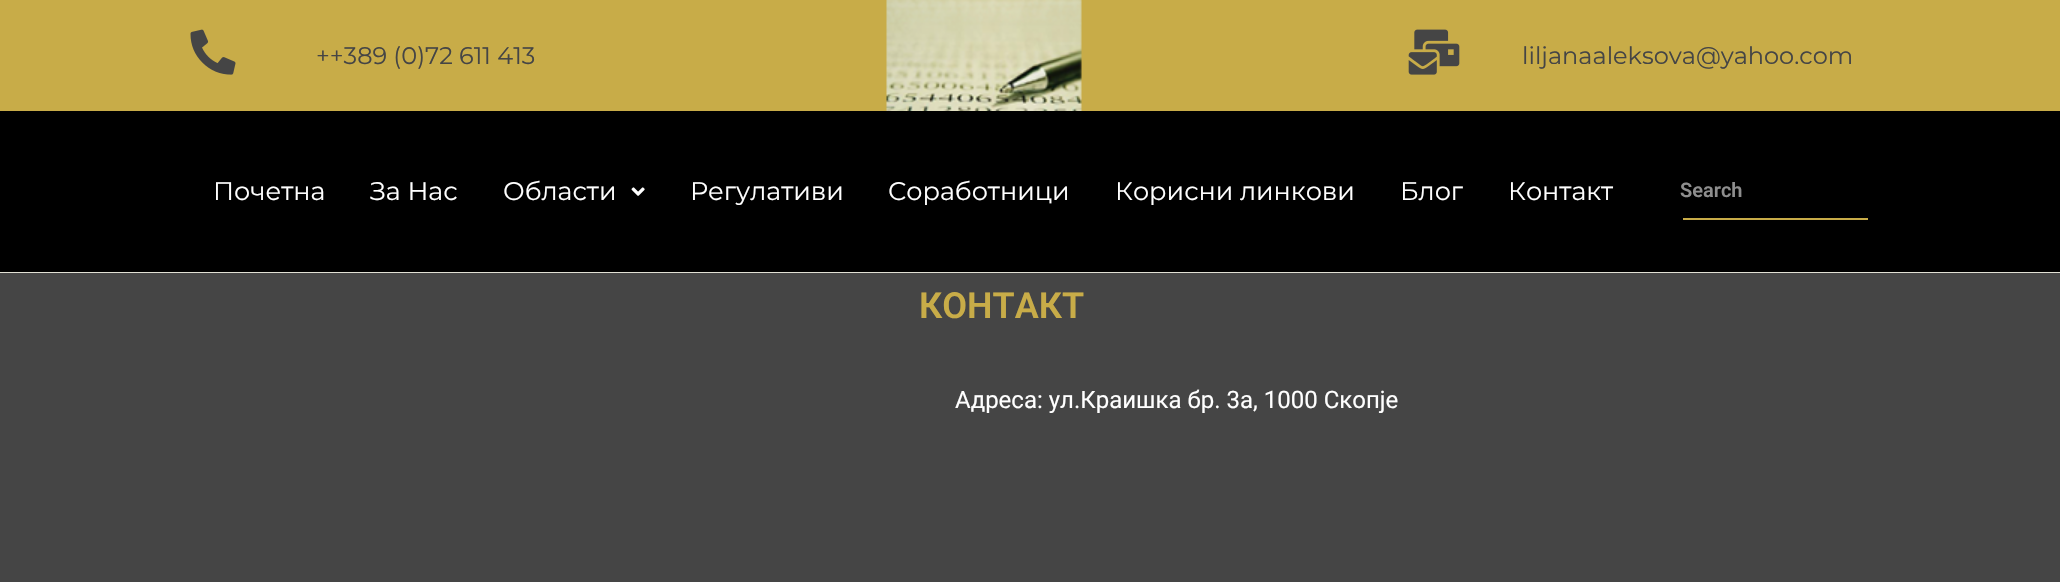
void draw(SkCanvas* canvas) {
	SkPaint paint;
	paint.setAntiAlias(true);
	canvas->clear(0xffe1e0d4);
	paint.setColor(0xffc8ac48);
	canvas->drawRect(SkRect::MakeXYWH(0, 0, 2060, 111), paint);
	canvas->drawImageRect(SkImages::DeferredFromEncodedData(SkData::MakeFromFileName("img1.png")), SkRect::MakeXYWH(190, 29, 46, 46), SkSamplingOptions());
	SkFont f1(fontMgr->matchFamilyStyle("Montserrat", SkFontStyle::Normal()), 24);
	f1.setSubpixel(true);
	paint.setColor(0xff454545);
	canvas->drawString("++389 (0)72 611 413", 316, 64, f1, paint);
	canvas->drawImageRect(SkImages::DeferredFromEncodedData(SkData::MakeFromFileName("img2.png")), SkRect::MakeXYWH(886, 0, 196, 111), SkSamplingOptions());
	canvas->drawImageRect(SkImages::DeferredFromEncodedData(SkData::MakeFromFileName("img3.png")), SkRect::MakeXYWH(1408, 29, 52, 46), SkSamplingOptions());
	canvas->drawString("liljanaaleksova@yahoo.com", 1522, 64, f1, paint);
	paint.setColor(0xff000000);
	canvas->drawRect(SkRect::MakeXYWH(0, 111, 2060, 161), paint);
	SkFont f2(fontMgr->matchFamilyStyle("Montserrat", SkFontStyle::Normal()), 25.5);
	f2.setSubpixel(true);
	paint.setColor(0xffffffff);
	canvas->drawString("Почетна", 213, 200, f2, paint);
	canvas->drawString("За Нас", 370, 200, f2, paint);
	canvas->drawString("Области", 503, 200, f2, paint);
	canvas->drawImageRect(SkImages::DeferredFromEncodedData(SkData::MakeFromFileName("img4.png")), SkRect::MakeXYWH(631, 187, 14, 9), SkSamplingOptions());
	canvas->drawString("Регулативи", 690, 200, f2, paint);
	canvas->drawString("Соработници", 888, 200, f2, paint);
	canvas->drawString("Корисни линкови", 1115, 200, f2, paint);
	canvas->drawString("Блог", 1400, 200, f2, paint);
	canvas->drawString("Контакт", 1508, 200, f2, paint);
	paint.setColor(0xffc8ac48);
	canvas->drawRect(SkRect::MakeXYWH(1683, 218, 185, 2), paint);
	SkFont f3(fontMgr->matchFamilyStyle("Roboto", SkFontStyle(600, SkFontStyle::kNormal_Width, SkFontStyle::kUpright_Slant)), 20);
	f3.setSubpixel(true);
	paint.setColor(0xff8e8e8e);
	canvas->drawString("Search", 1680, 197, f3, paint);
	paint.setColor(0xff454545);
	canvas->drawRect(SkRect::MakeXYWH(0, 273, 2060, 309), paint);
	SkFont f4(fontMgr->matchFamilyStyle("Roboto", SkFontStyle(600, SkFontStyle::kNormal_Width, SkFontStyle::kUpright_Slant)), 36);
	f4.setSubpixel(true);
	paint.setColor(0xffc8ac48);
	canvas->drawString("КОНТАКТ", 919, 318, f4, paint);
	SkFont f5(fontMgr->matchFamilyStyle("Roboto", SkFontStyle::Normal()), 24);
	f5.setSubpixel(true);
	paint.setColor(0xffffffff);
	canvas->drawString("Адреса: ул.Краишка бр. 3а, 1000 Скопје", 955, 408, f5, paint);
}
